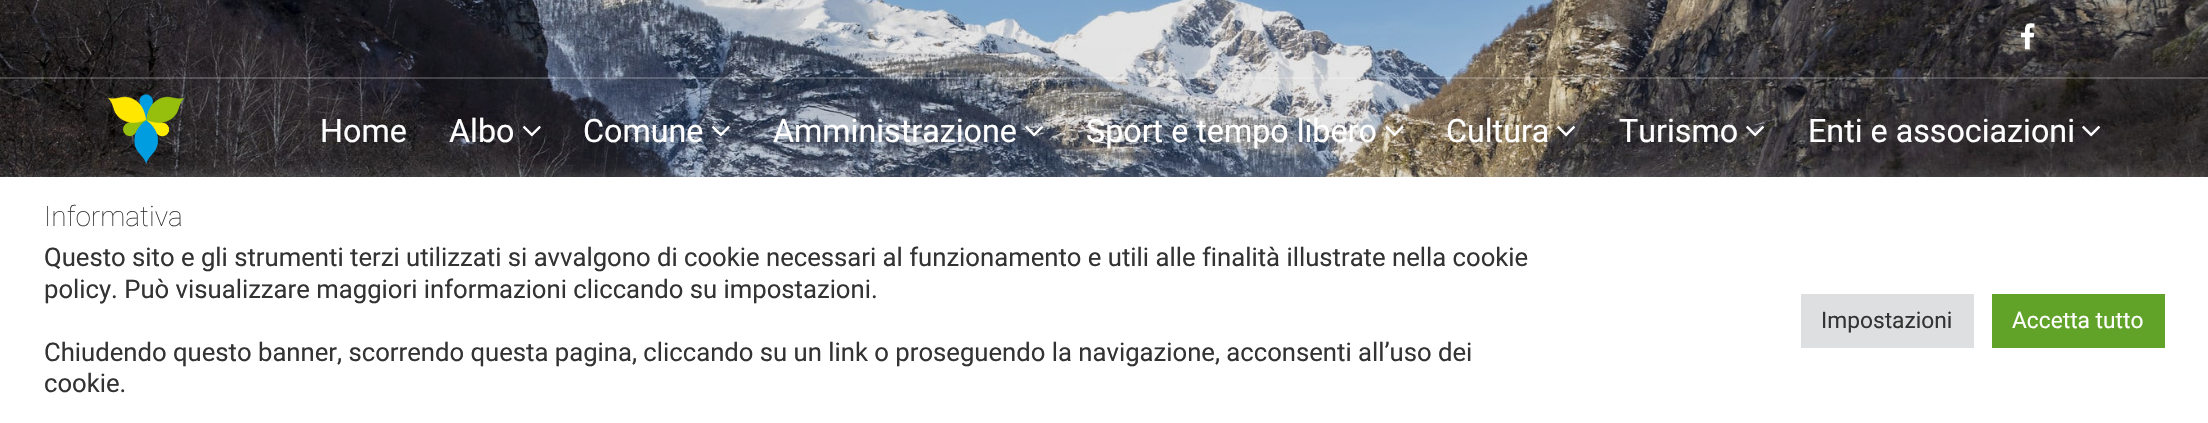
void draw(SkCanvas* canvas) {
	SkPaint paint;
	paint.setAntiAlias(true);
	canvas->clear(0xffffffff);
	canvas->drawImageRect(SkImages::DeferredFromEncodedData(SkData::MakeFromFileName("img1.png")), SkRect::MakeXYWH(0, 0, 2208, 177), SkSamplingOptions());
	paint.setColor(0x33ffffff);
	canvas->drawRect(SkRect::MakeXYWH(0, 77, 2208, 2), paint);
	canvas->drawImageRect(SkImages::DeferredFromEncodedData(SkData::MakeFromFileName("img2.png")), SkRect::MakeXYWH(2021, 23, 14, 27), SkSamplingOptions());
	paint.setColor(0x4dacabab);
	paint.setMaskFilter(SkMaskFilter::MakeBlur(kNormal_SkBlurStyle, 9));
	canvas->drawRect(SkRect::MakeXYWH(0, 175, 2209, 247), paint);
	paint.setMaskFilter(nullptr);
	canvas->drawImageRect(SkImages::DeferredFromEncodedData(SkData::MakeFromFileName("img3.png")), SkRect::MakeXYWH(108, 94, 77, 70), SkSamplingOptions());
	SkFont f1(fontMgr->matchFamilyStyle("Roboto", SkFontStyle::Normal()), 32.25);
	f1.setSubpixel(true);
	paint.setColor(0xffffffff);
	canvas->drawString("Home", 320, 142, f1, paint);
	canvas->drawString("Albo", 449, 142, f1, paint);
	canvas->drawImageRect(SkImages::DeferredFromEncodedData(SkData::MakeFromFileName("img4.png")), SkRect::MakeXYWH(522, 125, 19, 12), SkSamplingOptions());
	canvas->drawString("Comune", 583, 142, f1, paint);
	canvas->drawImageRect(SkImages::DeferredFromEncodedData(SkData::MakeFromFileName("img5.png")), SkRect::MakeXYWH(711, 125, 19, 12), SkSamplingOptions());
	canvas->drawString("Amministrazione", 773, 142, f1, paint);
	canvas->drawImageRect(SkImages::DeferredFromEncodedData(SkData::MakeFromFileName("img6.png")), SkRect::MakeXYWH(1025, 126, 18, 11), SkSamplingOptions());
	canvas->drawString("Sport e tempo libero", 1086, 142, f1, paint);
	canvas->drawImageRect(SkImages::DeferredFromEncodedData(SkData::MakeFromFileName("img7.png")), SkRect::MakeXYWH(1385, 126, 19, 11), SkSamplingOptions());
	canvas->drawString("Cultura", 1446, 142, f1, paint);
	canvas->drawImageRect(SkImages::DeferredFromEncodedData(SkData::MakeFromFileName("img8.png")), SkRect::MakeXYWH(1557, 125, 18, 12), SkSamplingOptions());
	canvas->drawString("Turismo", 1619, 142, f1, paint);
	canvas->drawImageRect(SkImages::DeferredFromEncodedData(SkData::MakeFromFileName("img9.png")), SkRect::MakeXYWH(1746, 125, 18, 12), SkSamplingOptions());
	canvas->drawString("Enti e associazioni", 1808, 142, f1, paint);
	canvas->drawImageRect(SkImages::DeferredFromEncodedData(SkData::MakeFromFileName("img10.png")), SkRect::MakeXYWH(2082, 125, 18, 12), SkSamplingOptions());
	canvas->drawRect(SkRect::MakeXYWH(0, 177, 2208, 246), paint);
	SkFont f2(fontMgr->matchFamilyStyle("Roboto", SkFontStyle(100, SkFontStyle::kNormal_Width, SkFontStyle::kUpright_Slant)), 28);
	f2.setSubpixel(true);
	paint.setColor(0xff333333);
	canvas->drawString("Informativa", 44, 226, f2, paint);
	SkFont f3(fontMgr->matchFamilyStyle("Roboto", SkFontStyle::Normal()), 25.67);
	f3.setSubpixel(true);
	canvas->drawString("Questo sito e gli strumenti terzi utilizzati si avvalgono di cookie necessari al funzionamento e utili alle finalità illustrate nella cookie", 44, 266, f3, paint);
	canvas->drawString("policy. Può visualizzare maggiori informazioni cliccando su impostazioni.", 44, 298, f3, paint);
	canvas->drawString("Chiudendo questo banner, scorrendo questa pagina, cliccando su un link o proseguendo la navigazione, acconsenti all’uso dei", 44, 361, f3, paint);
	canvas->drawString("cookie.", 44, 392, f3, paint);
	paint.setColor(0xffdedfe0);
	canvas->drawRect(SkRect::MakeXYWH(1801, 294, 173, 54), paint);
	SkFont f4(fontMgr->matchFamilyStyle("Roboto", SkFontStyle::Normal()), 22.75);
	f4.setSubpixel(true);
	paint.setColor(0xff333333);
	canvas->drawString("Impostazioni", 1821, 328, f4, paint);
	paint.setColor(0xff61a229);
	canvas->drawRect(SkRect::MakeXYWH(1992, 294, 173, 54), paint);
	paint.setColor(0xffffffff);
	canvas->drawString("Accetta tutto", 2012, 328, f4, paint);
}
